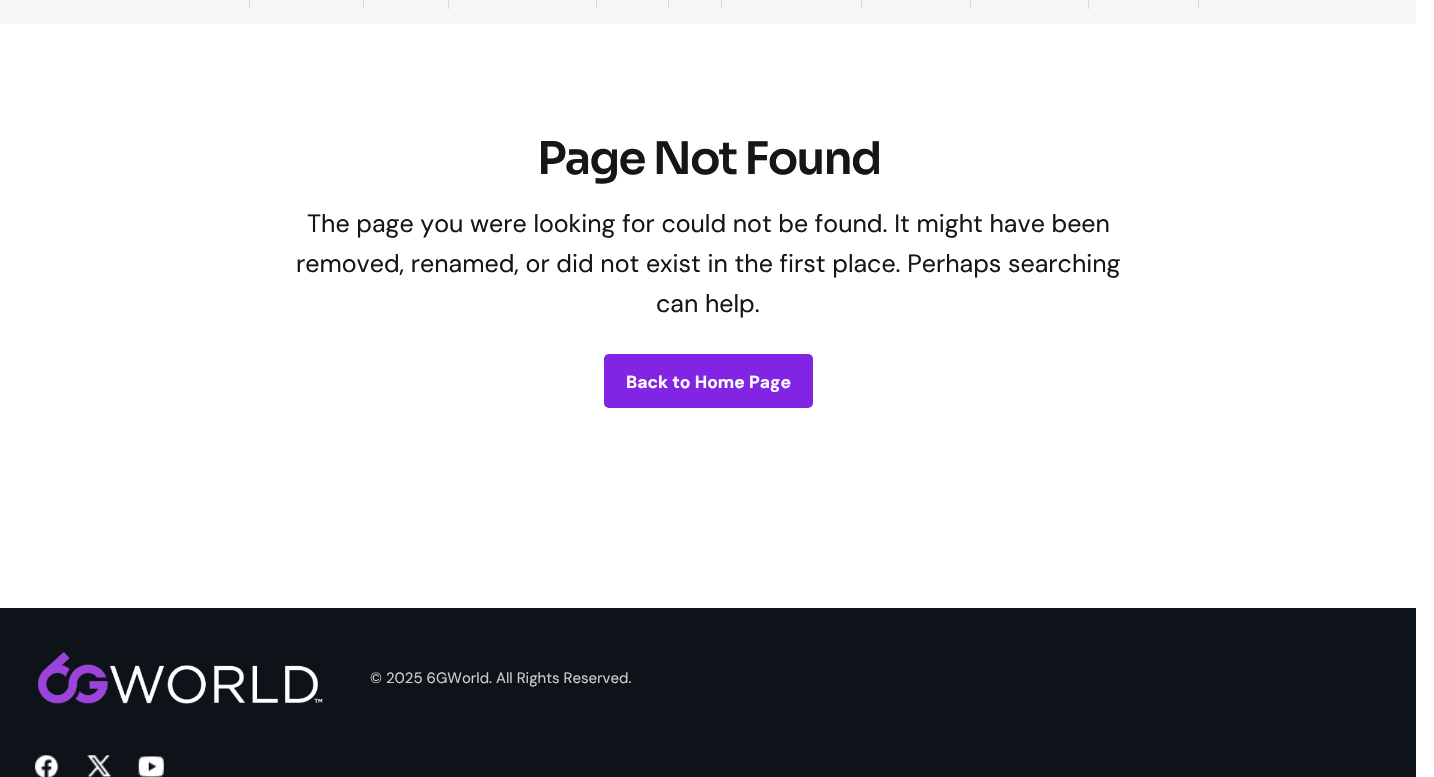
void draw(SkCanvas* canvas) {
	SkPaint paint;
	paint.setAntiAlias(true);
	auto spacedText = [&](const char* s, float x, float y, const SkFont& font, const SkPaint& ink, float letter, float word) {
		std::vector<SkGlyphID> glyphs(font.countText(s, strlen(s), SkTextEncoding::kUTF8));
		std::vector<float> xs(glyphs.size());
		font.textToGlyphs(s, strlen(s), SkTextEncoding::kUTF8, glyphs);
		font.getXPos(glyphs, xs, x);
		float extra = 0;
		for (size_t i = 0; i < glyphs.size(); i++) {
			xs[i] += extra;
			extra += letter + word * (glyphs[i] == font.unicharToGlyph(' '));
		}
		canvas->drawTextBlob(SkTextBlob::MakeFromPosHGlyphs(glyphs, xs, y, font), 0, 0, ink);
	};
	canvas->clear(0xffffffff);
	paint.setColor(0xfff6f6f6);
	canvas->drawRect(SkRect::MakeXYWH(0, 0, 1416, 24), paint);
	paint.setColor(0xffd9d9d9);
	canvas->drawRect(SkRect::MakeXYWH(249, 0, 1, 9), paint);
	canvas->drawRect(SkRect::MakeXYWH(363, 0, 1, 9), paint);
	canvas->drawRect(SkRect::MakeXYWH(448, 0, 1, 9), paint);
	canvas->drawRect(SkRect::MakeXYWH(596, 0, 1, 9), paint);
	canvas->drawRect(SkRect::MakeXYWH(668, 0, 1, 9), paint);
	canvas->drawRect(SkRect::MakeXYWH(721, 0, 1, 9), paint);
	canvas->drawRect(SkRect::MakeXYWH(861, 0, 1, 9), paint);
	canvas->drawRect(SkRect::MakeXYWH(970, 0, 1, 9), paint);
	canvas->drawRect(SkRect::MakeXYWH(1088, 0, 1, 9), paint);
	canvas->drawRect(SkRect::MakeXYWH(1198, 0, 1, 9), paint);
	SkFont f1(fontMgr->matchFamilyStyle("Sora", SkFontStyle(600, SkFontStyle::kNormal_Width, SkFontStyle::kUpright_Slant)), 45);
	f1.setSubpixel(true);
	paint.setColor(0xff161616);
	spacedText("Page Not Found", 537, 174, f1, paint, -1.75, 0);
	SkFont f2(fontMgr->matchFamilyStyle("DM Sans", SkFontStyle::Normal()), 25);
	f2.setSubpixel(true);
	canvas->drawString("The page you were looking for could not be found. It might have been", 307, 232, f2, paint);
	canvas->drawString("removed, renamed, or did not exist in the first place. Perhaps searching", 296, 272, f2, paint);
	canvas->drawString("can help.", 656, 312, f2, paint);
	paint.setColor(0xff8224e3);
	canvas->drawRoundRect(SkRect::MakeXYWH(604, 354, 209, 54), 5, 5, paint);
	SkFont f3(fontMgr->matchFamilyStyle("DM Sans", SkFontStyle::Bold()), 17.5);
	f3.setSubpixel(true);
	paint.setColor(0xffffffff);
	canvas->drawString("Back to Home Page", 626, 388, f3, paint);
	paint.setColor(0xff0e131a);
	canvas->drawRect(SkRect::MakeXYWH(0, 608, 1416, 169), paint);
	canvas->drawImageRect(SkImages::DeferredFromEncodedData(SkData::MakeFromFileName("img1.png")), SkRect::MakeXYWH(37, 652, 286, 52), SkSamplingOptions());
	SkFont f4(fontMgr->matchFamilyStyle("DM Sans", SkFontStyle::Normal()), 15);
	f4.setSubpixel(true);
	paint.setColor(0xffcdcdcd);
	canvas->drawString("© 2025 6GWorld. All Rights Reserved.", 370, 683, f4, paint);
	canvas->drawImageRect(SkImages::DeferredFromEncodedData(SkData::MakeFromFileName("img2.png")), SkRect::MakeXYWH(34, 755, 25, 22), SkSamplingOptions());
	canvas->drawImageRect(SkImages::DeferredFromEncodedData(SkData::MakeFromFileName("img3.png")), SkRect::MakeXYWH(87, 755, 25, 22), SkSamplingOptions());
	canvas->drawImageRect(SkImages::DeferredFromEncodedData(SkData::MakeFromFileName("img4.png")), SkRect::MakeXYWH(138, 756, 26, 21), SkSamplingOptions());
}
